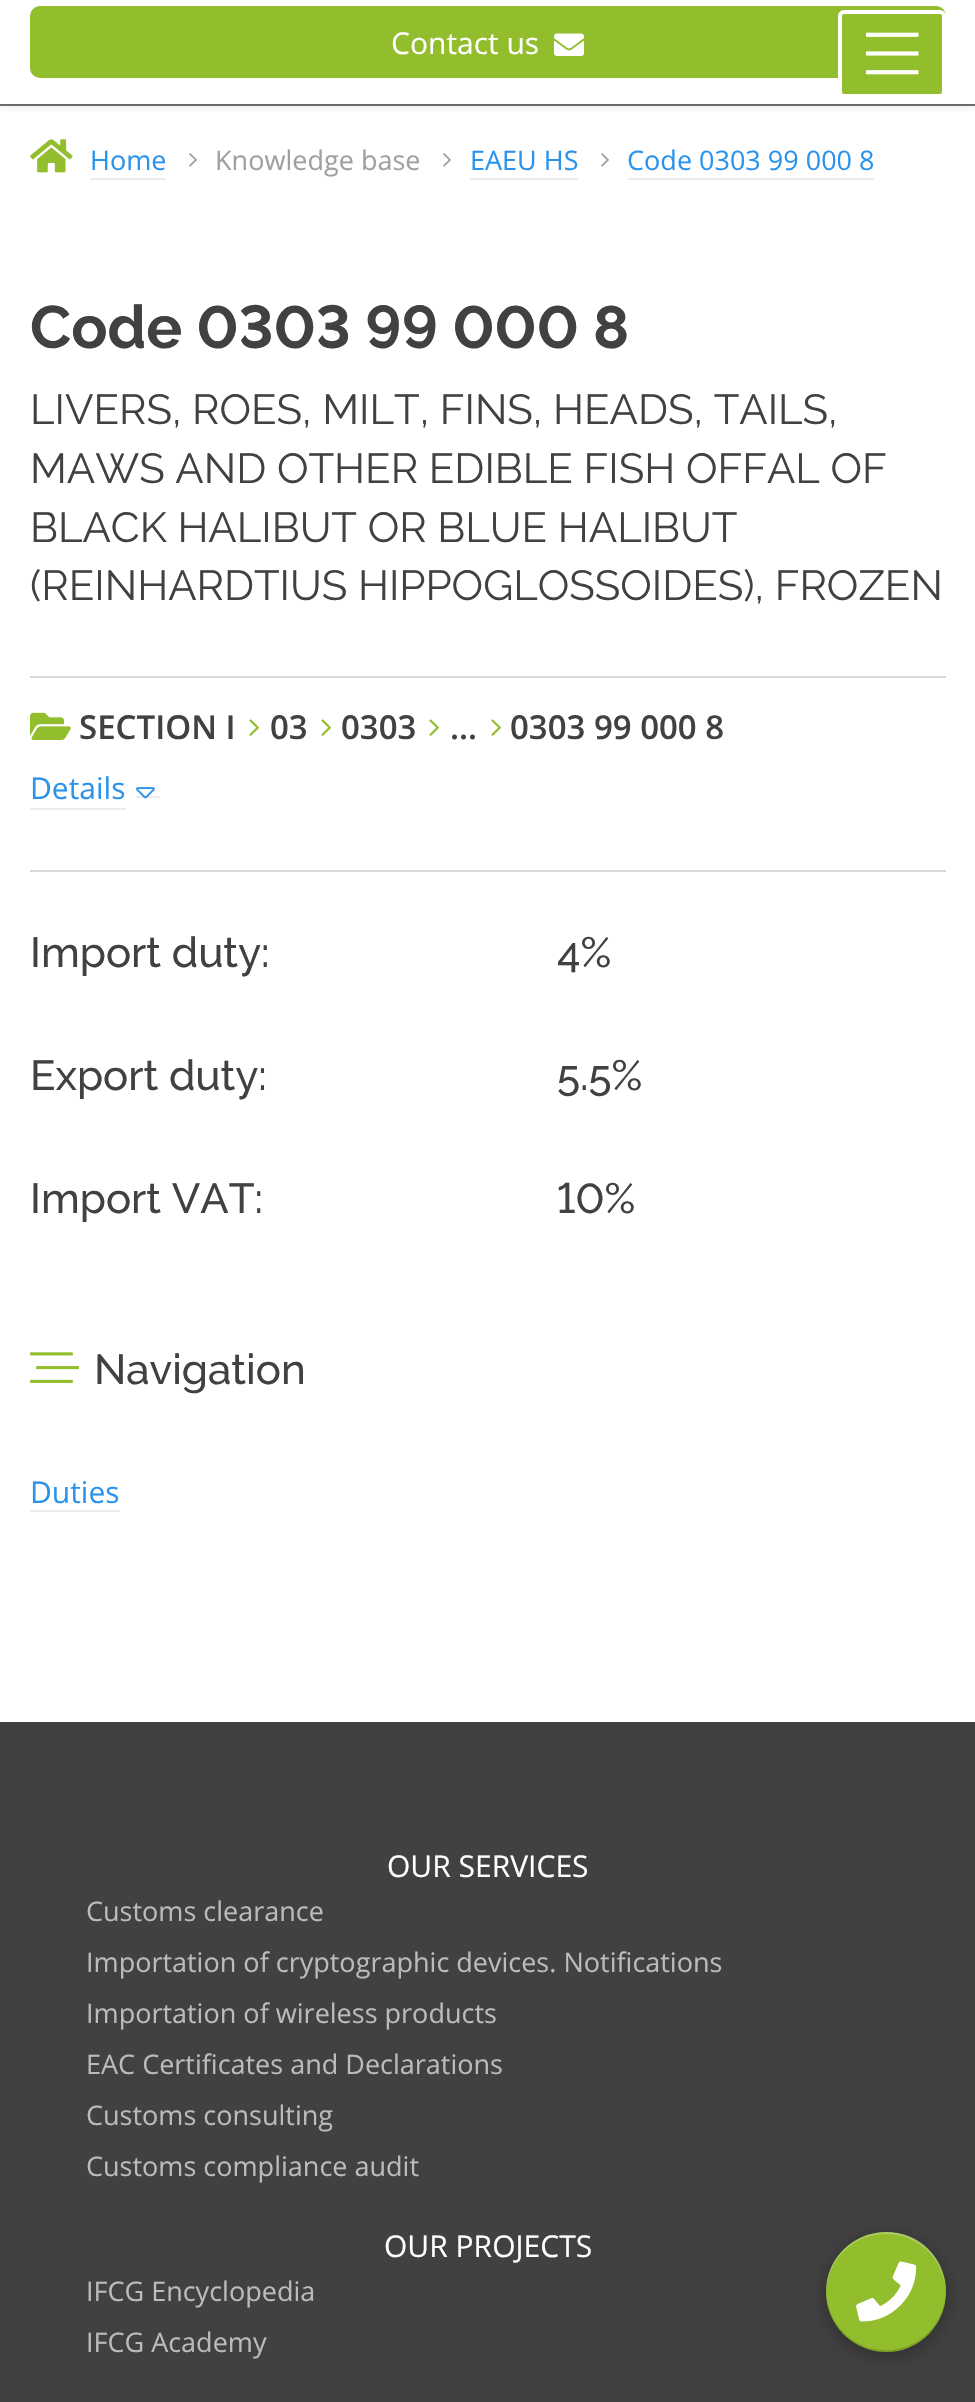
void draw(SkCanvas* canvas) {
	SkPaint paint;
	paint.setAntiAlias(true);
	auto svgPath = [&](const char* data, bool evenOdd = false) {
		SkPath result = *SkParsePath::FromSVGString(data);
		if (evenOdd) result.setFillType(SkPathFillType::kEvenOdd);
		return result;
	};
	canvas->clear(0xffffffff);
	paint.setColor(0xff706f70);
	canvas->drawRect(SkRect::MakeXYWH(0, 104, 975, 2), paint);
	canvas->save();
	canvas->clipRect(SkRect::MakeXYWH(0, 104, 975, 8));
	paint.setColor(0x1a000000);
	paint.setMaskFilter(SkMaskFilter::MakeBlur(kNormal_SkBlurStyle, 10));
	canvas->drawRect(SkRect::MakeXYWH(0, -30, 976, 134), paint);
	paint.setMaskFilter(nullptr);
	canvas->restore();
	paint.setColor(0xff92bd2c);
	canvas->drawRoundRect(SkRect::MakeXYWH(31, 7, 914, 70), 9, 9, paint);
	paint.setStroke(true);
	paint.setStrokeWidth(2);
	canvas->drawRoundRect(SkRect::MakeXYWH(31, 7, 914, 70), 9, 9, paint);
	SkFont f1(fontMgr->matchFamilyStyle("Open Sans", SkFontStyle::Normal()), 30);
	f1.setSubpixel(true);
	paint.setStroke(false);
	paint.setColor(0xffffffff);
	canvas->drawString("Contact us", 391, 54, f1, paint);
	canvas->drawImageRect(SkImages::DeferredFromEncodedData(SkData::MakeFromFileName("img1.png")), SkRect::MakeXYWH(554, 33, 30, 23), SkSamplingOptions());
	paint.setColor(0xff92bd2c);
	canvas->drawRoundRect(SkRect::MakeXYWH(840, 12, 104, 84), 4, 4, paint);
	paint.setStroke(true);
	paint.setStrokeWidth(4);
	paint.setColor(0xffffffff);
	canvas->drawRoundRect(SkRect::MakeXYWH(840, 12, 104, 84), 4, 4, paint);
	canvas->drawImageRect(SkImages::DeferredFromEncodedData(SkData::MakeFromFileName("img2.png")), SkRect::MakeXYWH(866, 32, 53, 43), SkSamplingOptions());
	canvas->drawImageRect(SkImages::DeferredFromEncodedData(SkData::MakeFromFileName("img3.png")), SkRect::MakeXYWH(30, 139, 43, 34), SkSamplingOptions());
	SkFont f2(fontMgr->matchFamilyStyle("Open Sans", SkFontStyle::Normal()), 27);
	f2.setSubpixel(true);
	paint.setStroke(false);
	paint.setColor(0xff2b93ec);
	canvas->drawString("Home", 90, 170, f2, paint);
	paint.setColor(0xffececec);
	canvas->drawRect(SkRect::MakeXYWH(90, 178, 76, 2), paint);
	canvas->drawImageRect(SkImages::DeferredFromEncodedData(SkData::MakeFromFileName("img4.png")), SkRect::MakeXYWH(189, 153, 8, 14), SkSamplingOptions());
	paint.setColor(0xffa1a0a1);
	canvas->drawString("Knowledge base", 215, 170, f2, paint);
	canvas->drawImageRect(SkImages::DeferredFromEncodedData(SkData::MakeFromFileName("img4.png")), SkRect::MakeXYWH(443, 153, 8, 14), SkSamplingOptions());
	paint.setColor(0xff2b93ec);
	canvas->drawString("EAEU HS", 470, 170, f2, paint);
	paint.setColor(0xffececec);
	canvas->drawRect(SkRect::MakeXYWH(470, 178, 108, 2), paint);
	canvas->drawImageRect(SkImages::DeferredFromEncodedData(SkData::MakeFromFileName("img4.png")), SkRect::MakeXYWH(601, 153, 8, 14), SkSamplingOptions());
	paint.setColor(0xff2b93ec);
	canvas->drawString("Code 0303 99 000 8", 627, 170, f2, paint);
	paint.setColor(0xffececec);
	canvas->drawRect(SkRect::MakeXYWH(628, 178, 246, 2), paint);
	SkFont f3(fontMgr->matchFamilyStyle("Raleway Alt", SkFontStyle::Bold()), 60);
	f3.setSubpixel(true);
	paint.setColor(0xff424142);
	canvas->drawString("Code 0303 99 000 8", 30, 348, f3, paint);
	SkFont f4(fontMgr->matchFamilyStyle("Raleway", SkFontStyle::Normal()), 42);
	f4.setSubpixel(true);
	canvas->drawString("LIVERS, ROES, MILT, FINS, HEADS, TAILS,", 30, 424, f4, paint);
	canvas->drawString("MAWS AND OTHER EDIBLE FISH OFFAL OF", 30, 483, f4, paint);
	canvas->drawString("BLACK HALIBUT OR BLUE HALIBUT", 30, 542, f4, paint);
	canvas->drawString("(REINHARDTIUS HIPPOGLOSSOIDES), FROZEN", 30, 600, f4, paint);
	paint.setColor(0xffd9d9d9);
	canvas->drawRect(SkRect::MakeXYWH(30, 676, 916, 2), paint);
	canvas->drawImageRect(SkImages::DeferredFromEncodedData(SkData::MakeFromFileName("img5.png")), SkRect::MakeXYWH(30, 712, 41, 28), SkSamplingOptions());
	SkFont f5(fontMgr->matchFamilyStyle("Open Sans", SkFontStyle(600, SkFontStyle::kNormal_Width, SkFontStyle::kUpright_Slant)), 33);
	f5.setSubpixel(true);
	paint.setColor(0xff424142);
	canvas->drawString("SECTION I", 79, 739, f5, paint);
	canvas->drawImageRect(SkImages::DeferredFromEncodedData(SkData::MakeFromFileName("img6.png")), SkRect::MakeXYWH(249, 719, 10, 17), SkSamplingOptions());
	canvas->drawString("03", 270, 739, f5, paint);
	canvas->drawImageRect(SkImages::DeferredFromEncodedData(SkData::MakeFromFileName("img6.png")), SkRect::MakeXYWH(321, 719, 10, 17), SkSamplingOptions());
	canvas->drawString("0303", 341, 739, f5, paint);
	canvas->drawImageRect(SkImages::DeferredFromEncodedData(SkData::MakeFromFileName("img6.png")), SkRect::MakeXYWH(429, 719, 10, 17), SkSamplingOptions());
	canvas->drawImageRect(SkImages::DeferredFromEncodedData(SkData::MakeFromFileName("img6.png")), SkRect::MakeXYWH(491, 719, 10, 17), SkSamplingOptions());
	canvas->drawString("0303 99 000 8", 510, 739, f5, paint);
	canvas->drawString("…", 450, 739, f5, paint);
	paint.setColor(0xffececec);
	canvas->drawRect(SkRect::MakeXYWH(30, 808, 96, 2), paint);
	canvas->drawRect(SkRect::MakeXYWH(136, 796, 24, 2), paint);
	paint.setColor(0xff2b93ec);
	canvas->drawString("Details", 30, 799, f1, paint);
	canvas->drawImageRect(SkImages::DeferredFromEncodedData(SkData::MakeFromFileName("img7.png")), SkRect::MakeXYWH(136, 787, 19, 12), SkSamplingOptions());
	paint.setColor(0xffd9d9d9);
	canvas->drawRect(SkRect::MakeXYWH(30, 870, 916, 2), paint);
	SkFont f6(fontMgr->matchFamilyStyle("Raleway", SkFontStyle(500, SkFontStyle::kNormal_Width, SkFontStyle::kUpright_Slant)), 42);
	f6.setSubpixel(true);
	paint.setColor(0xff424142);
	canvas->drawString("Import duty:", 30, 967, f6, paint);
	canvas->drawString("4%", 557, 967, f6, paint);
	canvas->drawString("Export duty:", 30, 1090, f6, paint);
	canvas->drawString("5.5%", 557, 1090, f6, paint);
	canvas->drawString("Import VAT:", 30, 1213, f6, paint);
	SkFont f7(fontMgr->matchFamilyStyle("Raleway Alt", SkFontStyle(500, SkFontStyle::kNormal_Width, SkFontStyle::kUpright_Slant)), 42);
	f7.setSubpixel(true);
	canvas->drawString("10%", 557, 1213, f7, paint);
	canvas->drawImageRect(SkImages::DeferredFromEncodedData(SkData::MakeFromFileName("img8.png")), SkRect::MakeXYWH(30, 1352, 49, 31), SkSamplingOptions());
	canvas->drawString("Navigation", 94, 1384, f6, paint);
	paint.setColor(0xff2b93ec);
	canvas->drawString("Duties", 30, 1503, f1, paint);
	paint.setColor(0xffececec);
	canvas->drawRect(SkRect::MakeXYWH(30, 1510, 90, 2), paint);
	paint.setColor(0xff414141);
	canvas->drawRect(SkRect::MakeXYWH(0, 1722, 975, 680), paint);
	paint.setColor(0xffffffff);
	canvas->drawString("OUR SERVICES", 387, 1877, f1, paint);
	paint.setColor(0xffbbbbbb);
	canvas->drawString("Customs clearance", 86, 1921, f2, paint);
	canvas->drawString("Importation of cryptographic devices. Notifications", 86, 1972, f2, paint);
	canvas->drawString("Importation of wireless products", 86, 2023, f2, paint);
	canvas->drawString("EAC Certificates and Declarations", 86, 2074, f2, paint);
	canvas->drawString("Customs consulting", 86, 2125, f2, paint);
	canvas->drawString("Customs compliance audit", 86, 2176, f2, paint);
	paint.setColor(0xffffffff);
	canvas->drawString("OUR PROJECTS", 384, 2257, f1, paint);
	paint.setColor(0xffbbbbbb);
	canvas->drawString("IFCG Encyclopedia", 86, 2301, f2, paint);
	canvas->drawString("IFCG Academy", 86, 2352, f2, paint);
	paint.setColor(0x4d000000);
	paint.setMaskFilter(SkMaskFilter::MakeBlur(kNormal_SkBlurStyle, 10));
	canvas->drawRoundRect(SkRect::MakeXYWH(826, 2236, 120, 120), 60, 60, paint);
	paint.setMaskFilter(nullptr);
	paint.setColor(0xff92bd2c);
	canvas->drawCircle(886, 2292, 60, paint);
	paint.setColor(0x26000000);
	canvas->drawPath(svgPath("M826 2291C826 2303 829 2315 836 2326C869 2375 947 2350 946 2291C945 2324 919 2350 886 2350C853 2350 827 2324 826 2291Z"), paint);
	paint.setColor(0x40ffffff);
	canvas->drawPath(svgPath("M886 2234C919 2234 945 2260 946 2293C946 2281 943 2269 936 2258C903 2209 825 2234 826 2293C827 2260 853 2234 886 2234Z"), paint);
	canvas->drawImageRect(SkImages::DeferredFromEncodedData(SkData::MakeFromFileName("img9.png")), SkRect::MakeXYWH(856, 2261, 61, 61), SkSamplingOptions());
}
